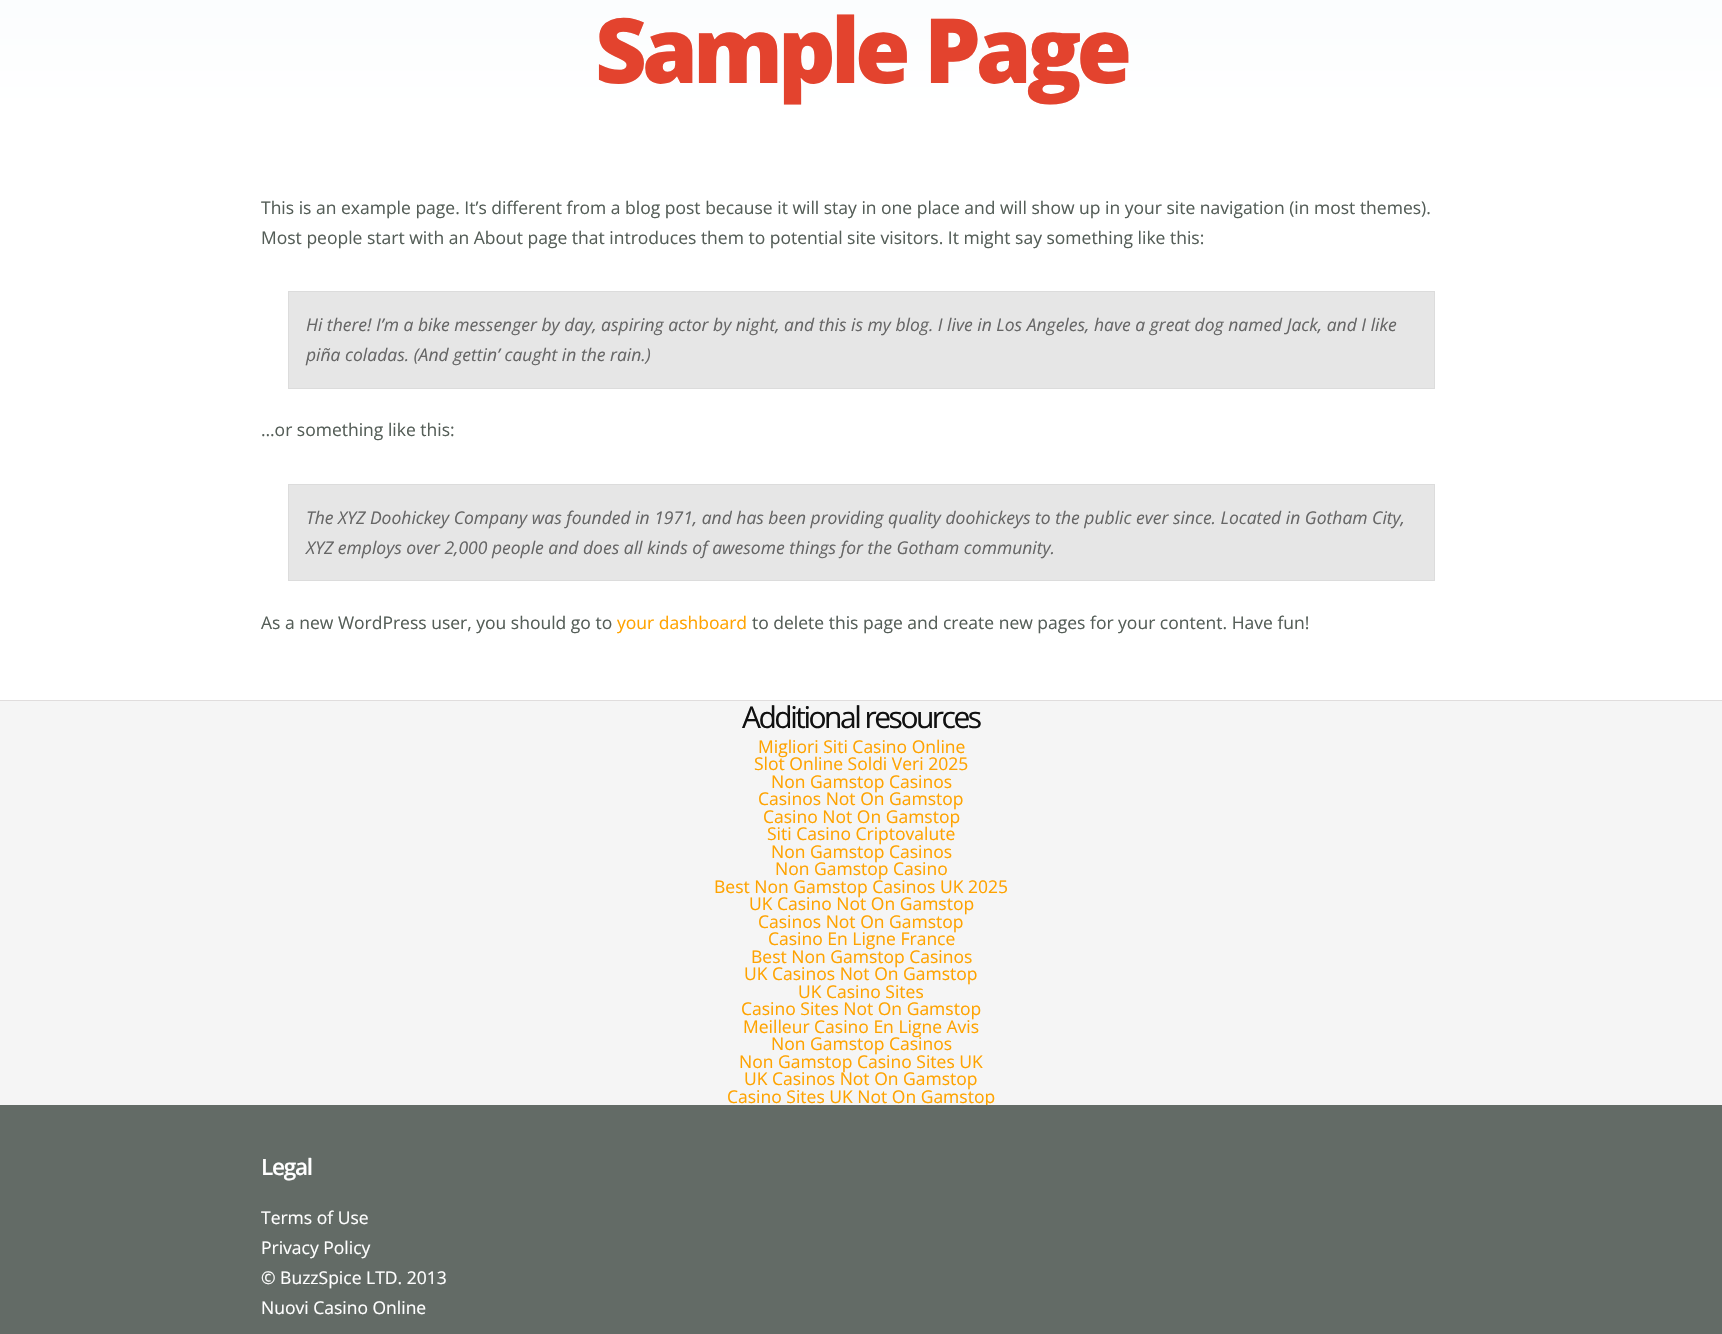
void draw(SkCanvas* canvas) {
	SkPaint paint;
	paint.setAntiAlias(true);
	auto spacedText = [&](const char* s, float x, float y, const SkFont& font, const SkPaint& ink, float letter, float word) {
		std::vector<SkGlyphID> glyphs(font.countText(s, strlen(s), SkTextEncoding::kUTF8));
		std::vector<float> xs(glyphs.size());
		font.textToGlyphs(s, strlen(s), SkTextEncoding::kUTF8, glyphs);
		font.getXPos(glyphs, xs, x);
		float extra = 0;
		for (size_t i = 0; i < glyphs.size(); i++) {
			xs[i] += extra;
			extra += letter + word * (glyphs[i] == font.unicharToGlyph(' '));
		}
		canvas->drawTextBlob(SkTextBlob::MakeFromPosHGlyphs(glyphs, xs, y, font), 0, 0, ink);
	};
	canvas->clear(0xfff5f5f5);
	{
		const SkColor colors[] = {0xfff6fafc, 0xffffffff};
		const float stops[] = {0, 1};
		const SkPoint ends[] = {{861, -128}, {861, 111}};
		paint.setShader(SkGradientShader::MakeLinear(ends, colors, stops, 2, SkTileMode::kClamp));
		paint.setAlpha(255);
	}
	canvas->drawRect(SkRect::MakeXYWH(0, 0, 1722, 111), paint);
	SkFont f1(fontMgr->matchFamilyStyle("Open Sans", SkFontStyle(800, SkFontStyle::kNormal_Width, SkFontStyle::kUpright_Slant)), 90);
	f1.setSubpixel(true);
	paint.setShader(nullptr);
	paint.setColor(0xffe3432e);
	spacedText("Sample Page", 595, 83, f1, paint, -5, 0);
	paint.setColor(0xffffffff);
	canvas->drawRect(SkRect::MakeXYWH(0, 111, 1722, 589), paint);
	paint.setColor(0xffe0dddd);
	canvas->drawRect(SkRect::MakeXYWH(0, 700, 1722, 1), paint);
	SkFont f2(fontMgr->matchFamilyStyle("Open Sans", SkFontStyle::Normal()), 17.5);
	f2.setSubpixel(true);
	paint.setColor(0xff555e58);
	canvas->drawString("This is an example page. It’s different from a blog post because it will stay in one place and will show up in your site navigation (in most themes).", 261, 214, f2, paint);
	canvas->drawString("Most people start with an About page that introduces them to potential site visitors. It might say something like this:", 261, 244, f2, paint);
	paint.setColor(0xffe6e6e6);
	canvas->drawRect(SkRect::MakeXYWH(288.5, 291.5, 1146, 97), paint);
	paint.setStroke(true);
	paint.setStrokeWidth(1);
	paint.setColor(0xffdcdcdc);
	canvas->drawRect(SkRect::MakeXYWH(288.5, 291.5, 1146, 97), paint);
	SkFont f3(fontMgr->matchFamilyStyle("Open Sans", SkFontStyle::Italic()), 17.5);
	f3.setSubpixel(true);
	paint.setStroke(false);
	paint.setColor(0xff666666);
	canvas->drawString("Hi there! I’m a bike messenger by day, aspiring actor by night, and this is my blog. I live in Los Angeles, have a great dog named Jack, and I like", 306, 331, f3, paint);
	canvas->drawString("piña coladas. (And gettin’ caught in the rain.)", 306, 361, f3, paint);
	paint.setColor(0xff555e58);
	canvas->drawString("…or something like this:", 261, 436, f2, paint);
	paint.setColor(0xffe6e6e6);
	canvas->drawRect(SkRect::MakeXYWH(288.5, 484.5, 1146, 96), paint);
	paint.setStroke(true);
	paint.setColor(0xffdcdcdc);
	canvas->drawRect(SkRect::MakeXYWH(288.5, 484.5, 1146, 96), paint);
	paint.setStroke(false);
	paint.setColor(0xff666666);
	canvas->drawString("The XYZ Doohickey Company was founded in 1971, and has been providing quality doohickeys to the public ever since. Located in Gotham City,", 306, 524, f3, paint);
	canvas->drawString("XYZ employs over 2,000 people and does all kinds of awesome things for the Gotham community.", 306, 554, f3, paint);
	paint.setColor(0xff555e58);
	canvas->drawString("As a new WordPress user, you should go to", 261, 629, f2, paint);
	paint.setColor(0xffffa300);
	canvas->drawString("your dashboard", 617, 629, f2, paint);
	paint.setColor(0xff555e58);
	canvas->drawString("to delete this page and create new pages for your content. Have fun!", 752, 629, f2, paint);
	SkFont f4(fontMgr->matchFamilyStyle("Open Sans", SkFontStyle::Normal()), 30);
	f4.setSubpixel(true);
	paint.setColor(0xff111111);
	spacedText("Additional resources", 742, 728, f4, paint, -2.5, 0);
	paint.setColor(0xffffa300);
	canvas->drawString("Migliori Siti Casino Online", 758, 753, f2, paint);
	canvas->drawString("Slot Online Soldi Veri 2025", 754, 770, f2, paint);
	canvas->drawString("Non Gamstop Casinos", 771, 788, f2, paint);
	canvas->drawString("Casinos Not On Gamstop", 758, 805, f2, paint);
	canvas->drawString("Casino Not On Gamstop", 763, 823, f2, paint);
	canvas->drawString("Siti Casino Criptovalute", 767, 840, f2, paint);
	canvas->drawString("Non Gamstop Casinos", 771, 858, f2, paint);
	canvas->drawString("Non Gamstop Casino", 775, 875, f2, paint);
	canvas->drawString("Best Non Gamstop Casinos UK 2025", 714, 893, f2, paint);
	canvas->drawString("UK Casino Not On Gamstop", 749, 910, f2, paint);
	canvas->drawString("Casinos Not On Gamstop", 758, 928, f2, paint);
	canvas->drawString("Casino En Ligne France", 768, 945, f2, paint);
	canvas->drawString("Best Non Gamstop Casinos", 751, 963, f2, paint);
	canvas->drawString("UK Casinos Not On Gamstop", 744, 980, f2, paint);
	canvas->drawString("UK Casino Sites", 798, 998, f2, paint);
	canvas->drawString("Casino Sites Not On Gamstop", 741, 1015, f2, paint);
	canvas->drawString("Meilleur Casino En Ligne Avis", 743, 1033, f2, paint);
	canvas->drawString("Non Gamstop Casinos", 771, 1050, f2, paint);
	canvas->drawString("Non Gamstop Casino Sites UK", 739, 1068, f2, paint);
	canvas->drawString("UK Casinos Not On Gamstop", 744, 1085, f2, paint);
	canvas->drawString("Casino Sites UK Not On Gamstop", 727, 1103, f2, paint);
	paint.setColor(0xff636b66);
	canvas->drawRect(SkRect::MakeXYWH(0, 1105, 1722, 229), paint);
	SkFont f5(fontMgr->matchFamilyStyle("Open Sans", SkFontStyle(600, SkFontStyle::kNormal_Width, SkFontStyle::kUpright_Slant)), 22.5);
	f5.setSubpixel(true);
	paint.setColor(0xffffffff);
	spacedText("Legal", 261, 1175, f5, paint, -1.25, 0);
	canvas->drawString("Terms of Use", 261, 1224, f2, paint);
	canvas->drawString("Privacy Policy", 261, 1254, f2, paint);
	canvas->drawString("© BuzzSpice LTD. 2013", 261, 1284, f2, paint);
	canvas->drawString("Nuovi Casino Online", 261, 1314, f2, paint);
}
